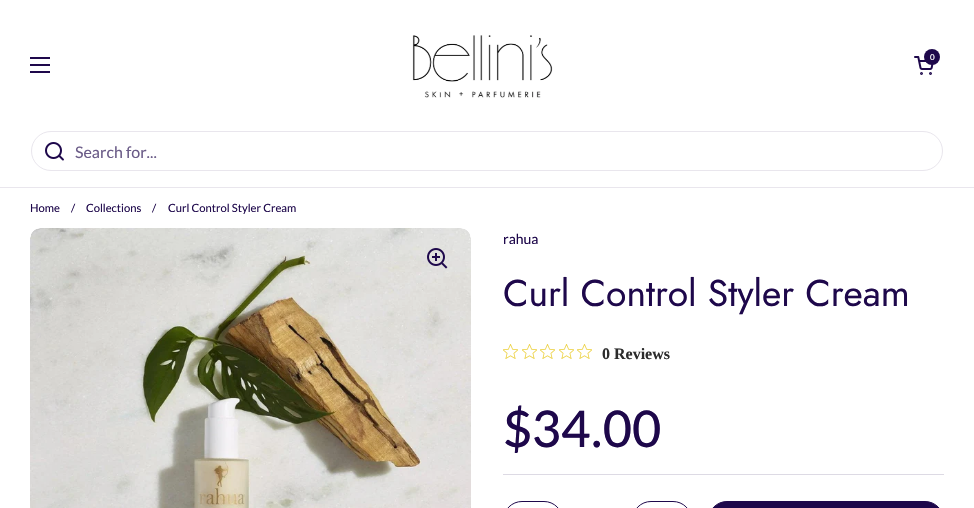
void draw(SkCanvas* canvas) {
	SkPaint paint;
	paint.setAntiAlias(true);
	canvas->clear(0xffffffff);
	paint.setColor(0xff1e084b);
	canvas->drawRect(SkRect::MakeXYWH(30, 57, 20, 2), paint);
	canvas->drawRect(SkRect::MakeXYWH(30, 64, 20, 2), paint);
	canvas->drawRect(SkRect::MakeXYWH(30, 71, 20, 2), paint);
	canvas->drawImageRect(SkImages::DeferredFromEncodedData(SkData::MakeFromFileName("img1.png")), SkRect::MakeXYWH(412, 35, 141, 63), SkSamplingOptions());
	canvas->drawImageRect(SkImages::DeferredFromEncodedData(SkData::MakeFromFileName("img2.png")), SkRect::MakeXYWH(914, 56, 20, 19), SkSamplingOptions());
	canvas->drawCircle(932, 57, 8, paint);
	SkFont f1(fontMgr->matchFamilyStyle("Lato", SkFontStyle(500, SkFontStyle::kNormal_Width, SkFontStyle::kUpright_Slant)), 8);
	f1.setSubpixel(true);
	paint.setColor(0xffffffff);
	canvas->drawString("0", 930, 60, f1, paint);
	paint.setColor(0xffe9e6ed);
	canvas->drawRect(SkRect::MakeXYWH(0, 187, 974, 1), paint);
	paint.setStroke(true);
	paint.setStrokeWidth(1);
	canvas->drawRoundRect(SkRect::MakeXYWH(31.5, 131.5, 911, 39), 19.5, 19.5, paint);
	canvas->drawImageRect(SkImages::DeferredFromEncodedData(SkData::MakeFromFileName("img3.png")), SkRect::MakeXYWH(45, 142, 19, 19), SkSamplingOptions());
	SkFont f2(fontMgr->matchFamilyStyle("Lato", SkFontStyle::Normal()), 16);
	f2.setSubpixel(true);
	paint.setStroke(false);
	paint.setColor(0xff6b5c88);
	canvas->drawString("Search for...", 75, 158, f2, paint);
	SkFont f3(fontMgr->matchFamilyStyle("Lato", SkFontStyle::Normal()), 11.25);
	f3.setSubpixel(true);
	paint.setColor(0xff1e084b);
	canvas->drawString("Home", 30, 212, f3, paint);
	canvas->drawString("/", 71, 212, f3, paint);
	canvas->drawString("Collections", 86, 212, f3, paint);
	canvas->drawString("/", 152, 212, f3, paint);
	canvas->drawString("Curl Control Styler Cream", 168, 212, f3, paint);
	canvas->drawImageRect(SkImages::DeferredFromEncodedData(SkData::MakeFromFileName("img4.png")), SkRect::MakeXYWH(30, 228, 441, 280), SkSamplingOptions());
	canvas->drawImageRect(SkImages::DeferredFromEncodedData(SkData::MakeFromFileName("img5.png")), SkRect::MakeXYWH(427, 248, 21, 21), SkSamplingOptions());
	SkFont f4(fontMgr->matchFamilyStyle("Lato", SkFontStyle::Normal()), 14);
	f4.setSubpixel(true);
	canvas->drawString("rahua", 503, 244, f4, paint);
	SkFont f5(fontMgr->matchFamilyStyle("Jost", SkFontStyle::Normal()), 37.25);
	f5.setSubpixel(true);
	canvas->drawString("Curl Control Styler Cream", 503, 306, f5, paint);
	canvas->drawImageRect(SkImages::DeferredFromEncodedData(SkData::MakeFromFileName("img6.png")), SkRect::MakeXYWH(503, 344, 15, 15), SkSamplingOptions());
	canvas->drawImageRect(SkImages::DeferredFromEncodedData(SkData::MakeFromFileName("img6.png")), SkRect::MakeXYWH(522, 344, 15, 15), SkSamplingOptions());
	canvas->drawImageRect(SkImages::DeferredFromEncodedData(SkData::MakeFromFileName("img6.png")), SkRect::MakeXYWH(540, 344, 15, 15), SkSamplingOptions());
	canvas->drawImageRect(SkImages::DeferredFromEncodedData(SkData::MakeFromFileName("img6.png")), SkRect::MakeXYWH(559, 344, 15, 15), SkSamplingOptions());
	canvas->drawImageRect(SkImages::DeferredFromEncodedData(SkData::MakeFromFileName("img6.png")), SkRect::MakeXYWH(577, 344, 15, 15), SkSamplingOptions());
	SkFont f6(fontMgr->matchFamilyStyle("Liberation Serif", SkFontStyle::Bold()), 16);
	f6.setSubpixel(true);
	paint.setColor(0xff2c2c2c);
	canvas->drawString("0 Reviews", 602, 359, f6, paint);
	SkFont f7(fontMgr->matchFamilyStyle("Lato", SkFontStyle(500, SkFontStyle::kNormal_Width, SkFontStyle::kUpright_Slant)), 50.5);
	f7.setSubpixel(true);
	paint.setColor(0xff1e084b);
	canvas->drawString("$34.00", 503, 447, f7, paint);
	paint.setColor(0xffdddae4);
	canvas->drawRect(SkRect::MakeXYWH(503, 474, 441, 1), paint);
	paint.setStroke(true);
	paint.setColor(0xff1e084b);
	canvas->drawRoundRect(SkRect::MakeXYWH(503.5, 501.5, 59, 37), 29.5, 29.5, paint);
	canvas->drawRoundRect(SkRect::MakeXYWH(632.5, 501.5, 59, 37), 29.5, 29.5, paint);
	paint.setStroke(false);
	canvas->drawRoundRect(SkRect::MakeXYWH(708.5, 501.5, 235, 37), 29.5, 29.5, paint);
	paint.setStroke(true);
	canvas->drawRoundRect(SkRect::MakeXYWH(708.5, 501.5, 235, 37), 29.5, 29.5, paint);
}
